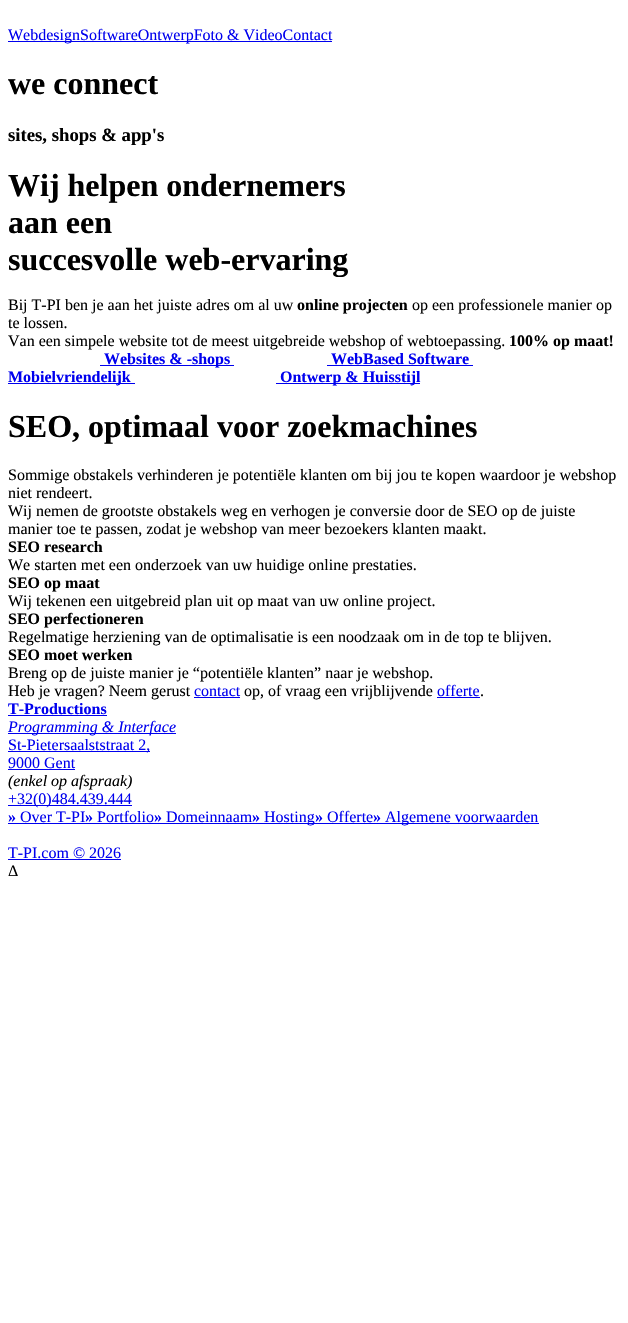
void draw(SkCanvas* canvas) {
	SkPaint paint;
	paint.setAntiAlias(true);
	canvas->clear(0xffffffff);
	paint.setColor(0xff0000ee);
	canvas->drawRect(SkRect::MakeXYWH(8, 41, 324, 1), paint);
	SkFont f1(fontMgr->matchFamilyStyle("Liberation Serif", SkFontStyle::Normal()), 16);
	f1.setSubpixel(true);
	canvas->drawString("WebdesignSoftwareOntwerpFoto & VideoContact", 8, 40, f1, paint);
	SkFont f2(fontMgr->matchFamilyStyle("Liberation Serif", SkFontStyle::Bold()), 32);
	f2.setSubpixel(true);
	paint.setColor(0xff000000);
	canvas->drawString("we connect", 8, 94, f2, paint);
	SkFont f3(fontMgr->matchFamilyStyle("Liberation Serif", SkFontStyle::Bold()), 18.75);
	f3.setSubpixel(true);
	canvas->drawString("sites, shops & app's", 8, 141, f3, paint);
	canvas->drawString("Wij helpen ondernemers", 8, 196, f2, paint);
	canvas->drawString("aan een", 8, 233, f2, paint);
	canvas->drawString("succesvolle web-ervaring", 8, 270, f2, paint);
	canvas->drawString("Bij T-PI ben je aan het juiste adres om al uw", 8, 310, f1, paint);
	SkFont f4(fontMgr->matchFamilyStyle("Liberation Serif", SkFontStyle::Bold()), 16);
	f4.setSubpixel(true);
	canvas->drawString("online projecten", 297, 310, f4, paint);
	canvas->drawString("op een professionele manier op", 412, 310, f1, paint);
	canvas->drawString("te lossen.", 8, 328, f1, paint);
	canvas->drawString("Van een simpele website tot de meest uitgebreide webshop of webtoepassing.", 8, 346, f1, paint);
	canvas->drawString("100% op maat!", 509, 346, f4, paint);
	paint.setColor(0xff0000ee);
	canvas->drawRect(SkRect::MakeXYWH(100, 365, 134, 1), paint);
	canvas->drawString("Websites & -shops", 104, 364, f4, paint);
	canvas->drawString("WebBased Software", 331, 364, f4, paint);
	canvas->drawRect(SkRect::MakeXYWH(327, 365, 146, 1), paint);
	canvas->drawRect(SkRect::MakeXYWH(8, 383, 127, 1), paint);
	canvas->drawString("Mobielvriendelijk", 8, 382, f4, paint);
	canvas->drawRect(SkRect::MakeXYWH(276, 383, 144, 1), paint);
	canvas->drawString("Ontwerp & Huisstijl", 280, 382, f4, paint);
	paint.setColor(0xff000000);
	canvas->drawString("SEO, optimaal voor zoekmachines", 8, 437, f2, paint);
	canvas->drawString("Sommige obstakels verhinderen je potentiële klanten om bij jou te kopen waardoor je webshop", 8, 480, f1, paint);
	canvas->drawString("niet rendeert.", 8, 498, f1, paint);
	canvas->drawString("Wij nemen de grootste obstakels weg en verhogen je conversie door de SEO op de juiste", 8, 516, f1, paint);
	canvas->drawString("manier toe te passen, zodat je webshop van meer bezoekers klanten maakt.", 8, 534, f1, paint);
	canvas->drawString("SEO research", 8, 552, f4, paint);
	canvas->drawString("We starten met een onderzoek van uw huidige online prestaties.", 8, 570, f1, paint);
	canvas->drawString("SEO op maat", 8, 588, f4, paint);
	canvas->drawString("Wij tekenen een uitgebreid plan uit op maat van uw online project.", 8, 606, f1, paint);
	canvas->drawString("SEO perfectioneren", 8, 624, f4, paint);
	canvas->drawString("Regelmatige herziening van de optimalisatie is een noodzaak om in de top te blijven.", 8, 642, f1, paint);
	canvas->drawString("SEO moet werken", 8, 660, f4, paint);
	canvas->drawString("Breng op de juiste manier je “potentiële klanten” naar je webshop.", 8, 678, f1, paint);
	canvas->drawString("Heb je vragen? Neem gerust", 8, 696, f1, paint);
	paint.setColor(0xff0000ee);
	canvas->drawString("contact", 194, 696, f1, paint);
	canvas->drawRect(SkRect::MakeXYWH(194, 697, 46, 1), paint);
	paint.setColor(0xff000000);
	canvas->drawString("op, of vraag een vrijblijvende", 244, 696, f1, paint);
	paint.setColor(0xff0000ee);
	canvas->drawString("offerte", 437, 696, f1, paint);
	canvas->drawRect(SkRect::MakeXYWH(437, 697, 43, 1), paint);
	paint.setColor(0xff000000);
	canvas->drawString(".", 480, 696, f1, paint);
	paint.setColor(0xff0000ee);
	canvas->drawString("T-Productions", 8, 714, f4, paint);
	canvas->drawRect(SkRect::MakeXYWH(8, 715, 99, 1), paint);
	canvas->drawRect(SkRect::MakeXYWH(8, 733, 168, 1), paint);
	SkFont f5(fontMgr->matchFamilyStyle("Liberation Serif", SkFontStyle::Italic()), 16);
	f5.setSubpixel(true);
	canvas->drawString("Programming & Interface", 8, 732, f5, paint);
	canvas->drawRect(SkRect::MakeXYWH(8, 751, 142, 1), paint);
	canvas->drawString("St-Pietersaalststraat 2,", 8, 750, f1, paint);
	canvas->drawString("9000 Gent", 8, 768, f1, paint);
	canvas->drawRect(SkRect::MakeXYWH(8, 769, 67, 1), paint);
	paint.setColor(0xff000000);
	canvas->drawString("(enkel op afspraak)", 8, 786, f5, paint);
	paint.setColor(0xff0000ee);
	canvas->drawRect(SkRect::MakeXYWH(8, 805, 124, 1), paint);
	canvas->drawString("+32(0)484.439.444", 8, 804, f1, paint);
	canvas->drawString("»", 8, 822, f4, paint);
	canvas->drawRect(SkRect::MakeXYWH(8, 823, 531, 1), paint);
	canvas->drawString("Over T-PI", 20, 822, f1, paint);
	canvas->drawString("»", 85, 822, f4, paint);
	canvas->drawString("Portfolio", 97, 822, f1, paint);
	canvas->drawString("»", 154, 822, f4, paint);
	canvas->drawString("Domeinnaam", 166, 822, f1, paint);
	canvas->drawString("»", 252, 822, f4, paint);
	canvas->drawString("Hosting", 264, 822, f1, paint);
	canvas->drawString("»", 315, 822, f4, paint);
	canvas->drawString("Offerte", 327, 822, f1, paint);
	canvas->drawString("»", 373, 822, f4, paint);
	canvas->drawString("Algemene voorwaarden", 385, 822, f1, paint);
	canvas->drawString("T-PI.com © 2026", 8, 858, f1, paint);
	canvas->drawRect(SkRect::MakeXYWH(8, 859, 113, 1), paint);
	paint.setColor(0xff000000);
	canvas->drawString("Δ", 8, 876, f1, paint);
}
